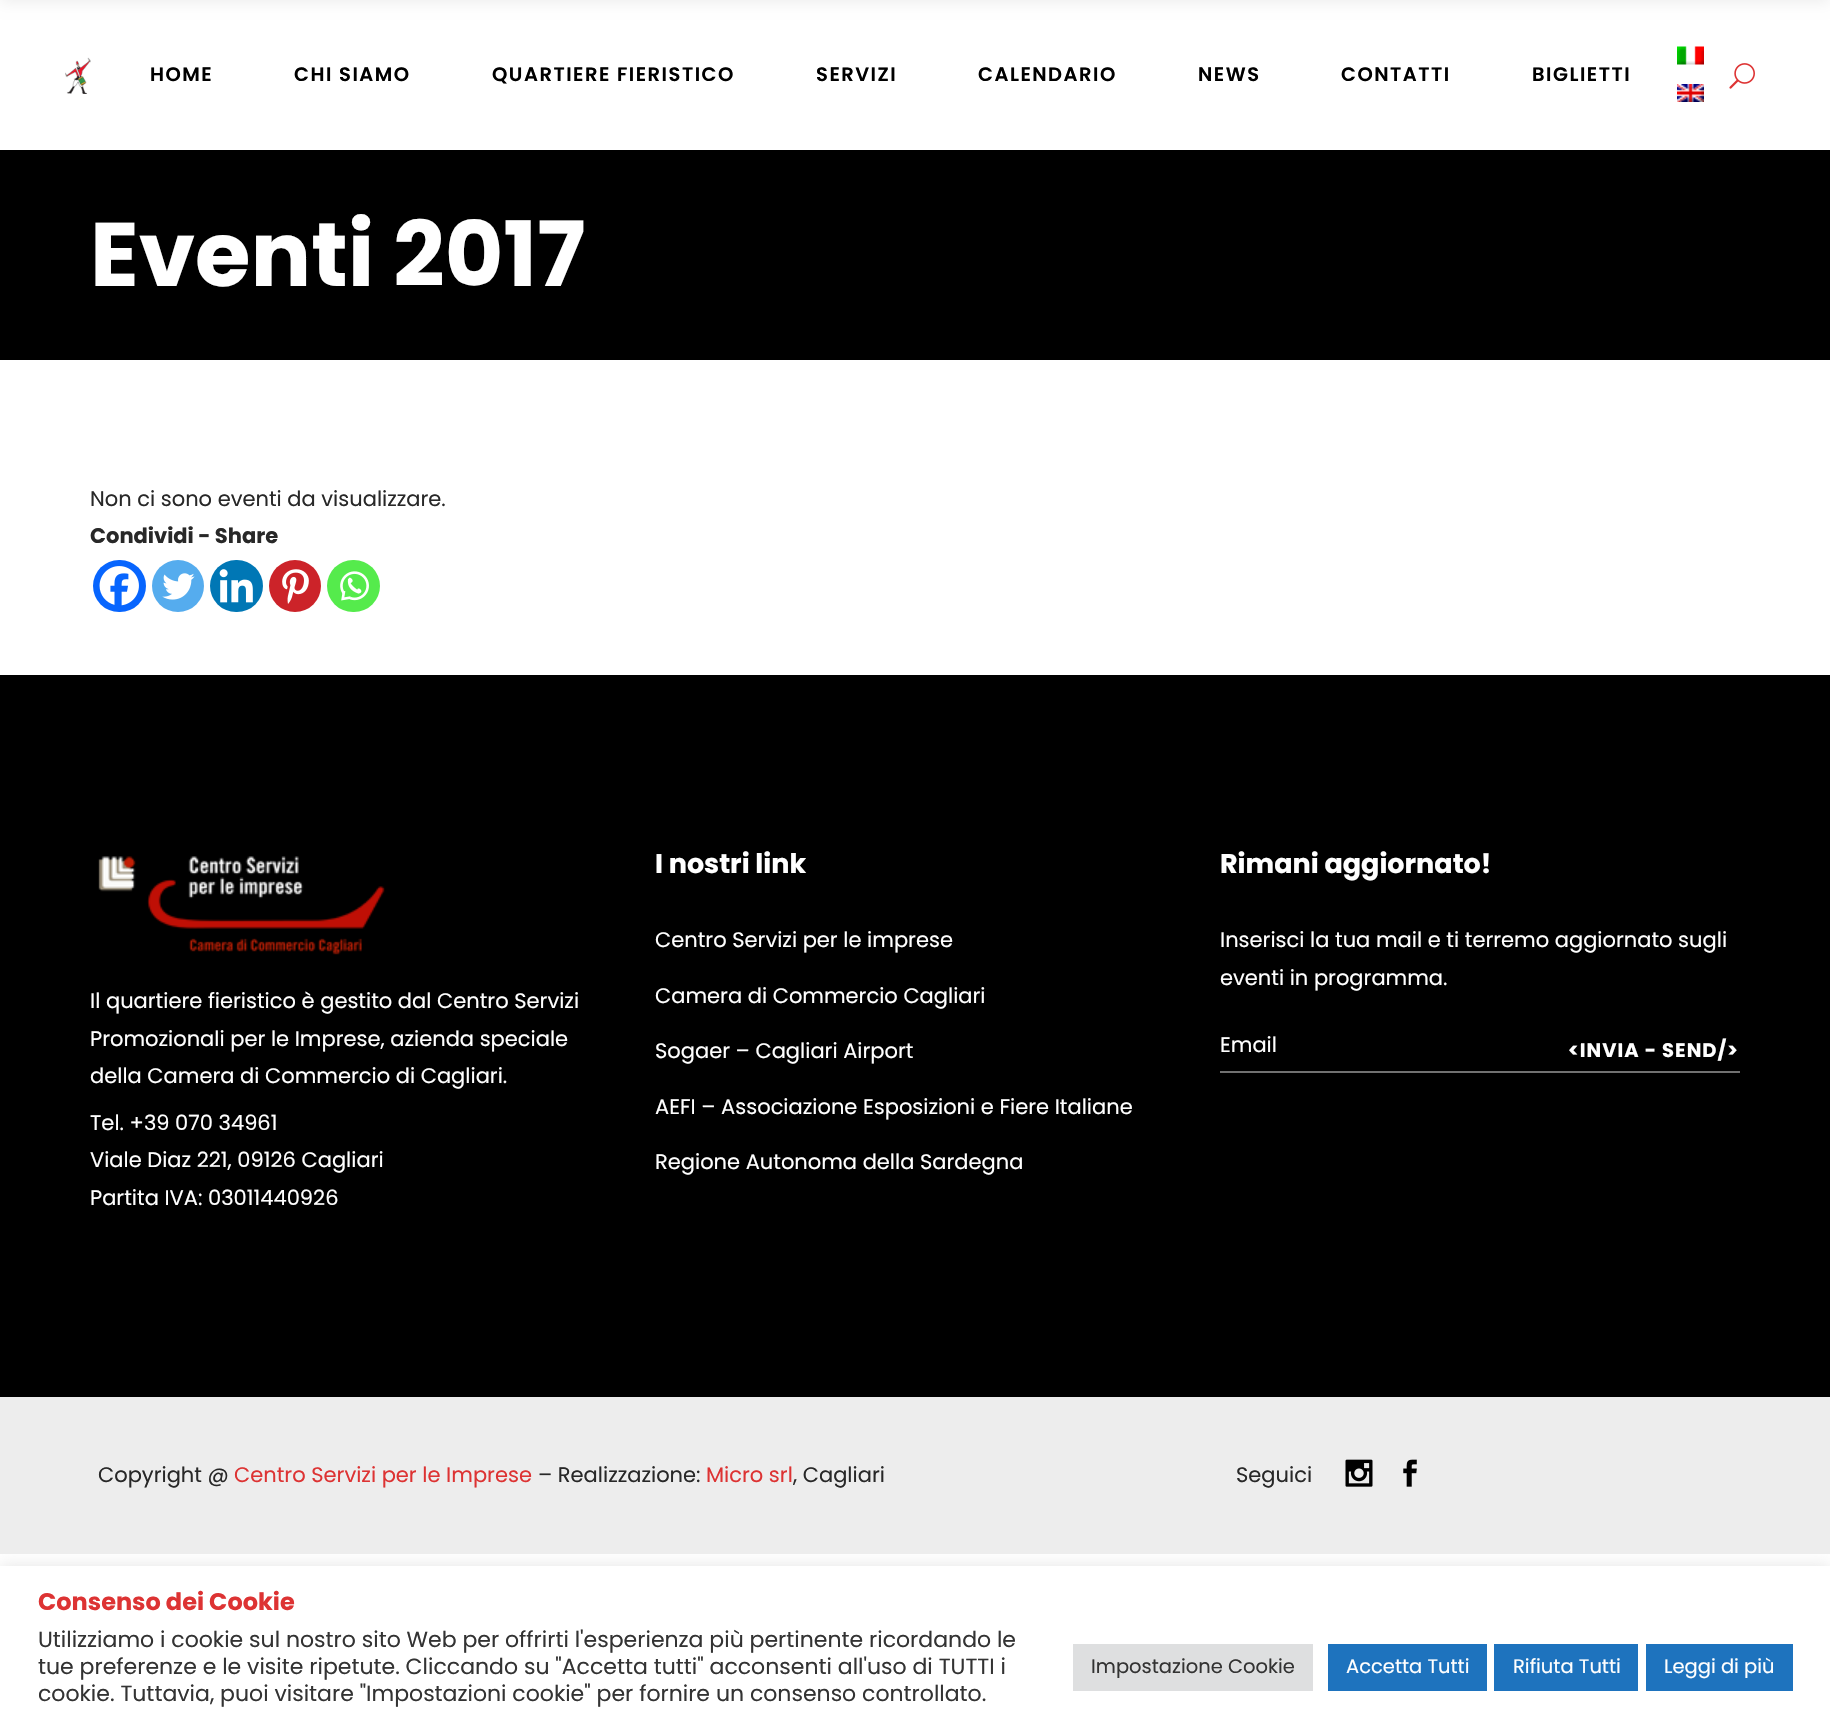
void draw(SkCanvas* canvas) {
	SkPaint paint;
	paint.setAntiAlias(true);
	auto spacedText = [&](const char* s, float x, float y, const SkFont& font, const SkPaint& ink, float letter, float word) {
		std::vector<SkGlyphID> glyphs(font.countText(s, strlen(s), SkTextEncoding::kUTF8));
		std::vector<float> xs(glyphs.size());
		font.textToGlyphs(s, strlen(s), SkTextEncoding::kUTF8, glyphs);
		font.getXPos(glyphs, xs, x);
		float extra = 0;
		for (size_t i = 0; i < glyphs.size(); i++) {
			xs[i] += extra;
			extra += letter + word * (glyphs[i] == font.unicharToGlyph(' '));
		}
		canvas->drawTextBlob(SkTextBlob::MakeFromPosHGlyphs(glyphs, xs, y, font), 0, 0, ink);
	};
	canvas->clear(0xffffffff);
	paint.setColor(0x12000000);
	paint.setMaskFilter(SkMaskFilter::MakeBlur(kNormal_SkBlurStyle, 7.5));
	canvas->drawRect(SkRect::MakeXYWH(0, -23, 1830, 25), paint);
	paint.setMaskFilter(nullptr);
	canvas->drawImageRect(SkImages::DeferredFromEncodedData(SkData::MakeFromFileName("img1.png")), SkRect::MakeXYWH(65, 57, 26, 37), SkSamplingOptions());
	SkFont f1(fontMgr->matchFamilyStyle("Poppins", SkFontStyle(600, SkFontStyle::kNormal_Width, SkFontStyle::kUpright_Slant)), 19.5);
	f1.setSubpixel(true);
	paint.setColor(0xff000000);
	spacedText("HOME", 150, 81, f1, paint, 1.5, 0);
	spacedText("CHI SIAMO", 294, 81, f1, paint, 1.5, 0);
	spacedText("QUARTIERE FIERISTICO", 492, 81, f1, paint, 1.5, 0);
	spacedText("SERVIZI", 816, 81, f1, paint, 1.5, 0);
	spacedText("CALENDARIO", 978, 81, f1, paint, 1.5, 0);
	spacedText("NEWS", 1198, 81, f1, paint, 1.5, 0);
	spacedText("CONTATTI", 1341, 81, f1, paint, 1.5, 0);
	spacedText("BIGLIETTI", 1532, 81, f1, paint, 1.5, 0);
	canvas->drawImageRect(SkImages::DeferredFromEncodedData(SkData::MakeFromFileName("img2.png")), SkRect::MakeXYWH(1677, 46, 27, 19), SkSamplingOptions());
	canvas->drawImageRect(SkImages::DeferredFromEncodedData(SkData::MakeFromFileName("img3.png")), SkRect::MakeXYWH(1677, 84, 27, 18), SkSamplingOptions());
	canvas->drawImageRect(SkImages::DeferredFromEncodedData(SkData::MakeFromFileName("img4.png")), SkRect::MakeXYWH(1729, 63, 26, 26), SkSamplingOptions());
	canvas->drawRect(SkRect::MakeXYWH(0, 150, 1830, 210), paint);
	SkFont f2(fontMgr->matchFamilyStyle("Poppins", SkFontStyle::Bold()), 90);
	f2.setSubpixel(true);
	paint.setColor(0xffffffff);
	canvas->drawString("Eventi 2017", 90, 286, f2, paint);
	SkFont f3(fontMgr->matchFamilyStyle("Poppins", SkFontStyle::Normal()), 21);
	f3.setSubpixel(true);
	paint.setColor(0xff282828);
	canvas->drawString("Non ci sono eventi da visualizzare.", 90, 506, f3, paint);
	SkFont f4(fontMgr->matchFamilyStyle("Poppins", SkFontStyle::Bold()), 21);
	f4.setSubpixel(true);
	canvas->drawString("Condividi - Share", 90, 543, f4, paint);
	paint.setColor(0xff0765fe);
	canvas->drawRoundRect(SkRect::MakeXYWH(93, 560, 53, 52), 26, 26, paint);
	canvas->drawImageRect(SkImages::DeferredFromEncodedData(SkData::MakeFromFileName("img5.png")), SkRect::MakeXYWH(99, 566, 40, 40), SkSamplingOptions());
	paint.setColor(0xff55acee);
	canvas->drawCircle(178, 586, 26, paint);
	canvas->drawImageRect(SkImages::DeferredFromEncodedData(SkData::MakeFromFileName("img6.png")), SkRect::MakeXYWH(162, 573, 33, 27), SkSamplingOptions());
	paint.setColor(0xff0077b5);
	canvas->drawRoundRect(SkRect::MakeXYWH(210, 560, 53, 52), 26, 26, paint);
	canvas->drawImageRect(SkImages::DeferredFromEncodedData(SkData::MakeFromFileName("img7.png")), SkRect::MakeXYWH(219, 569, 34, 34), SkSamplingOptions());
	paint.setColor(0xffcc2329);
	canvas->drawCircle(295, 586, 26, paint);
	canvas->drawImageRect(SkImages::DeferredFromEncodedData(SkData::MakeFromFileName("img8.png")), SkRect::MakeXYWH(282, 569, 27, 35), SkSamplingOptions());
	paint.setColor(0xff55eb4c);
	canvas->drawRoundRect(SkRect::MakeXYWH(327, 560, 53, 52), 26, 26, paint);
	canvas->drawImageRect(SkImages::DeferredFromEncodedData(SkData::MakeFromFileName("img9.png")), SkRect::MakeXYWH(340, 571, 29, 30), SkSamplingOptions());
	paint.setColor(0xff000000);
	canvas->drawRect(SkRect::MakeXYWH(0, 675, 1830, 722), paint);
	SkFont f5(fontMgr->matchFamilyStyle("Poppins", SkFontStyle::Bold()), 27);
	f5.setSubpixel(true);
	paint.setColor(0xffffffff);
	canvas->drawString("I nostri link", 655, 873, f5, paint);
	canvas->drawString("Centro Servizi per le imprese", 655, 947, f3, paint);
	canvas->drawString("Camera di Commercio Cagliari", 655, 1003, f3, paint);
	canvas->drawString("Sogaer – Cagliari Airport", 655, 1058, f3, paint);
	canvas->drawString("AEFI – Associazione Esposizioni e Fiere Italiane", 655, 1114, f3, paint);
	canvas->drawString("Regione Autonoma della Sardegna", 655, 1169, f3, paint);
	canvas->drawString("Rimani aggiornato!", 1220, 873, f5, paint);
	canvas->drawString("Inserisci la tua mail e ti terremo aggiornato sugli", 1220, 947, f3, paint);
	canvas->drawString("eventi in programma.", 1220, 985, f3, paint);
	paint.setColor(0xff717171);
	canvas->drawRect(SkRect::MakeXYWH(1220, 1071, 520, 2), paint);
	paint.setColor(0xffffffff);
	canvas->drawString("Email", 1220, 1052, f3, paint);
	SkFont f6(fontMgr->matchFamilyStyle("Poppins", SkFontStyle::Bold()), 19.5);
	f6.setSubpixel(true);
	spacedText("<INVIA - SEND/>", 1568, 1057, f6, paint, 1, 0);
	canvas->drawImageRect(SkImages::DeferredFromEncodedData(SkData::MakeFromFileName("img10.png")), SkRect::MakeXYWH(98, 856, 287, 99), SkSamplingOptions());
	canvas->drawString("Il quartiere fieristico è gestito dal Centro Servizi", 90, 1008, f3, paint);
	canvas->drawString("Promozionali per le Imprese, azienda speciale", 90, 1046, f3, paint);
	canvas->drawString("della Camera di Commercio di Cagliari.", 90, 1083, f3, paint);
	canvas->drawString("Tel. +39 070 34961", 90, 1130, f3, paint);
	canvas->drawString("Viale Diaz 221, 09126 Cagliari", 90, 1167, f3, paint);
	canvas->drawString("Partita IVA: 03011440926", 90, 1205, f3, paint);
	paint.setColor(0xffededed);
	canvas->drawRect(SkRect::MakeXYWH(0, 1397, 1830, 157), paint);
	paint.setColor(0xff282828);
	canvas->drawString("Copyright @", 98, 1482, f3, paint);
	paint.setColor(0xffdd3333);
	canvas->drawString("Centro Servizi per le Imprese", 234, 1482, f3, paint);
	paint.setColor(0xff282828);
	canvas->drawString("– Realizzazione:", 538, 1482, f3, paint);
	paint.setColor(0xffdd3333);
	canvas->drawString("Micro srl", 706, 1482, f3, paint);
	paint.setColor(0xff282828);
	canvas->drawString(", Cagliari", 793, 1482, f3, paint);
	canvas->drawString("Seguici", 1236, 1482, f3, paint);
	canvas->drawImageRect(SkImages::DeferredFromEncodedData(SkData::MakeFromFileName("img11.png")), SkRect::MakeXYWH(1345, 1459, 28, 28), SkSamplingOptions());
	canvas->drawImageRect(SkImages::DeferredFromEncodedData(SkData::MakeFromFileName("img12.png")), SkRect::MakeXYWH(1403, 1459, 14, 28), SkSamplingOptions());
	canvas->save();
	canvas->clipRect(SkRect::MakeXYWH(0, 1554, 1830, 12));
	paint.setColor(0x4dacabab);
	paint.setMaskFilter(SkMaskFilter::MakeBlur(kNormal_SkBlurStyle, 7.5));
	canvas->drawRect(SkRect::MakeXYWH(0, 1565, 1830, 162), paint);
	paint.setMaskFilter(nullptr);
	canvas->restore();
	SkFont f7(fontMgr->matchFamilyStyle("Poppins", SkFontStyle::Bold()), 24);
	f7.setSubpixel(true);
	paint.setColor(0xffdd3333);
	canvas->drawString("Consenso dei Cookie", 38, 1610, f7, paint);
	SkFont f8(fontMgr->matchFamilyStyle("Poppins", SkFontStyle::Normal()), 22);
	f8.setSubpixel(true);
	paint.setColor(0xff333333);
	canvas->drawString("Utilizziamo i cookie sul nostro sito Web per offrirti l'esperienza più pertinente ricordando le", 38, 1647, f8, paint);
	canvas->drawString("tue preferenze e le visite ripetute. Cliccando su \"Accetta tutti\" acconsenti all'uso di TUTTI i", 38, 1674, f8, paint);
	canvas->drawString("cookie. Tuttavia, puoi visitare \"Impostazioni cookie\" per fornire un consenso controllato.", 38, 1701, f8, paint);
	paint.setColor(0xffdedfe0);
	canvas->drawRect(SkRect::MakeXYWH(1073, 1644, 240, 47), paint);
	SkFont f9(fontMgr->matchFamilyStyle("Poppins", SkFontStyle::Normal()), 19.5);
	f9.setSubpixel(true);
	paint.setColor(0xff333333);
	canvas->drawString("Impostazione Cookie", 1091, 1673, f9, paint);
	paint.setColor(0xff1e73be);
	canvas->drawRect(SkRect::MakeXYWH(1328, 1644, 159, 47), paint);
	paint.setColor(0xffffffff);
	canvas->drawString("Accetta Tutti", 1346, 1673, f9, paint);
	paint.setColor(0xff1e73be);
	canvas->drawRect(SkRect::MakeXYWH(1494, 1644, 144, 47), paint);
	paint.setColor(0xffffffff);
	canvas->drawString("Rifiuta Tutti", 1513, 1673, f9, paint);
	paint.setColor(0xff1e73be);
	canvas->drawRect(SkRect::MakeXYWH(1646, 1644, 147, 47), paint);
	paint.setColor(0xffffffff);
	canvas->drawString("Leggi di più", 1664, 1673, f9, paint);
}
